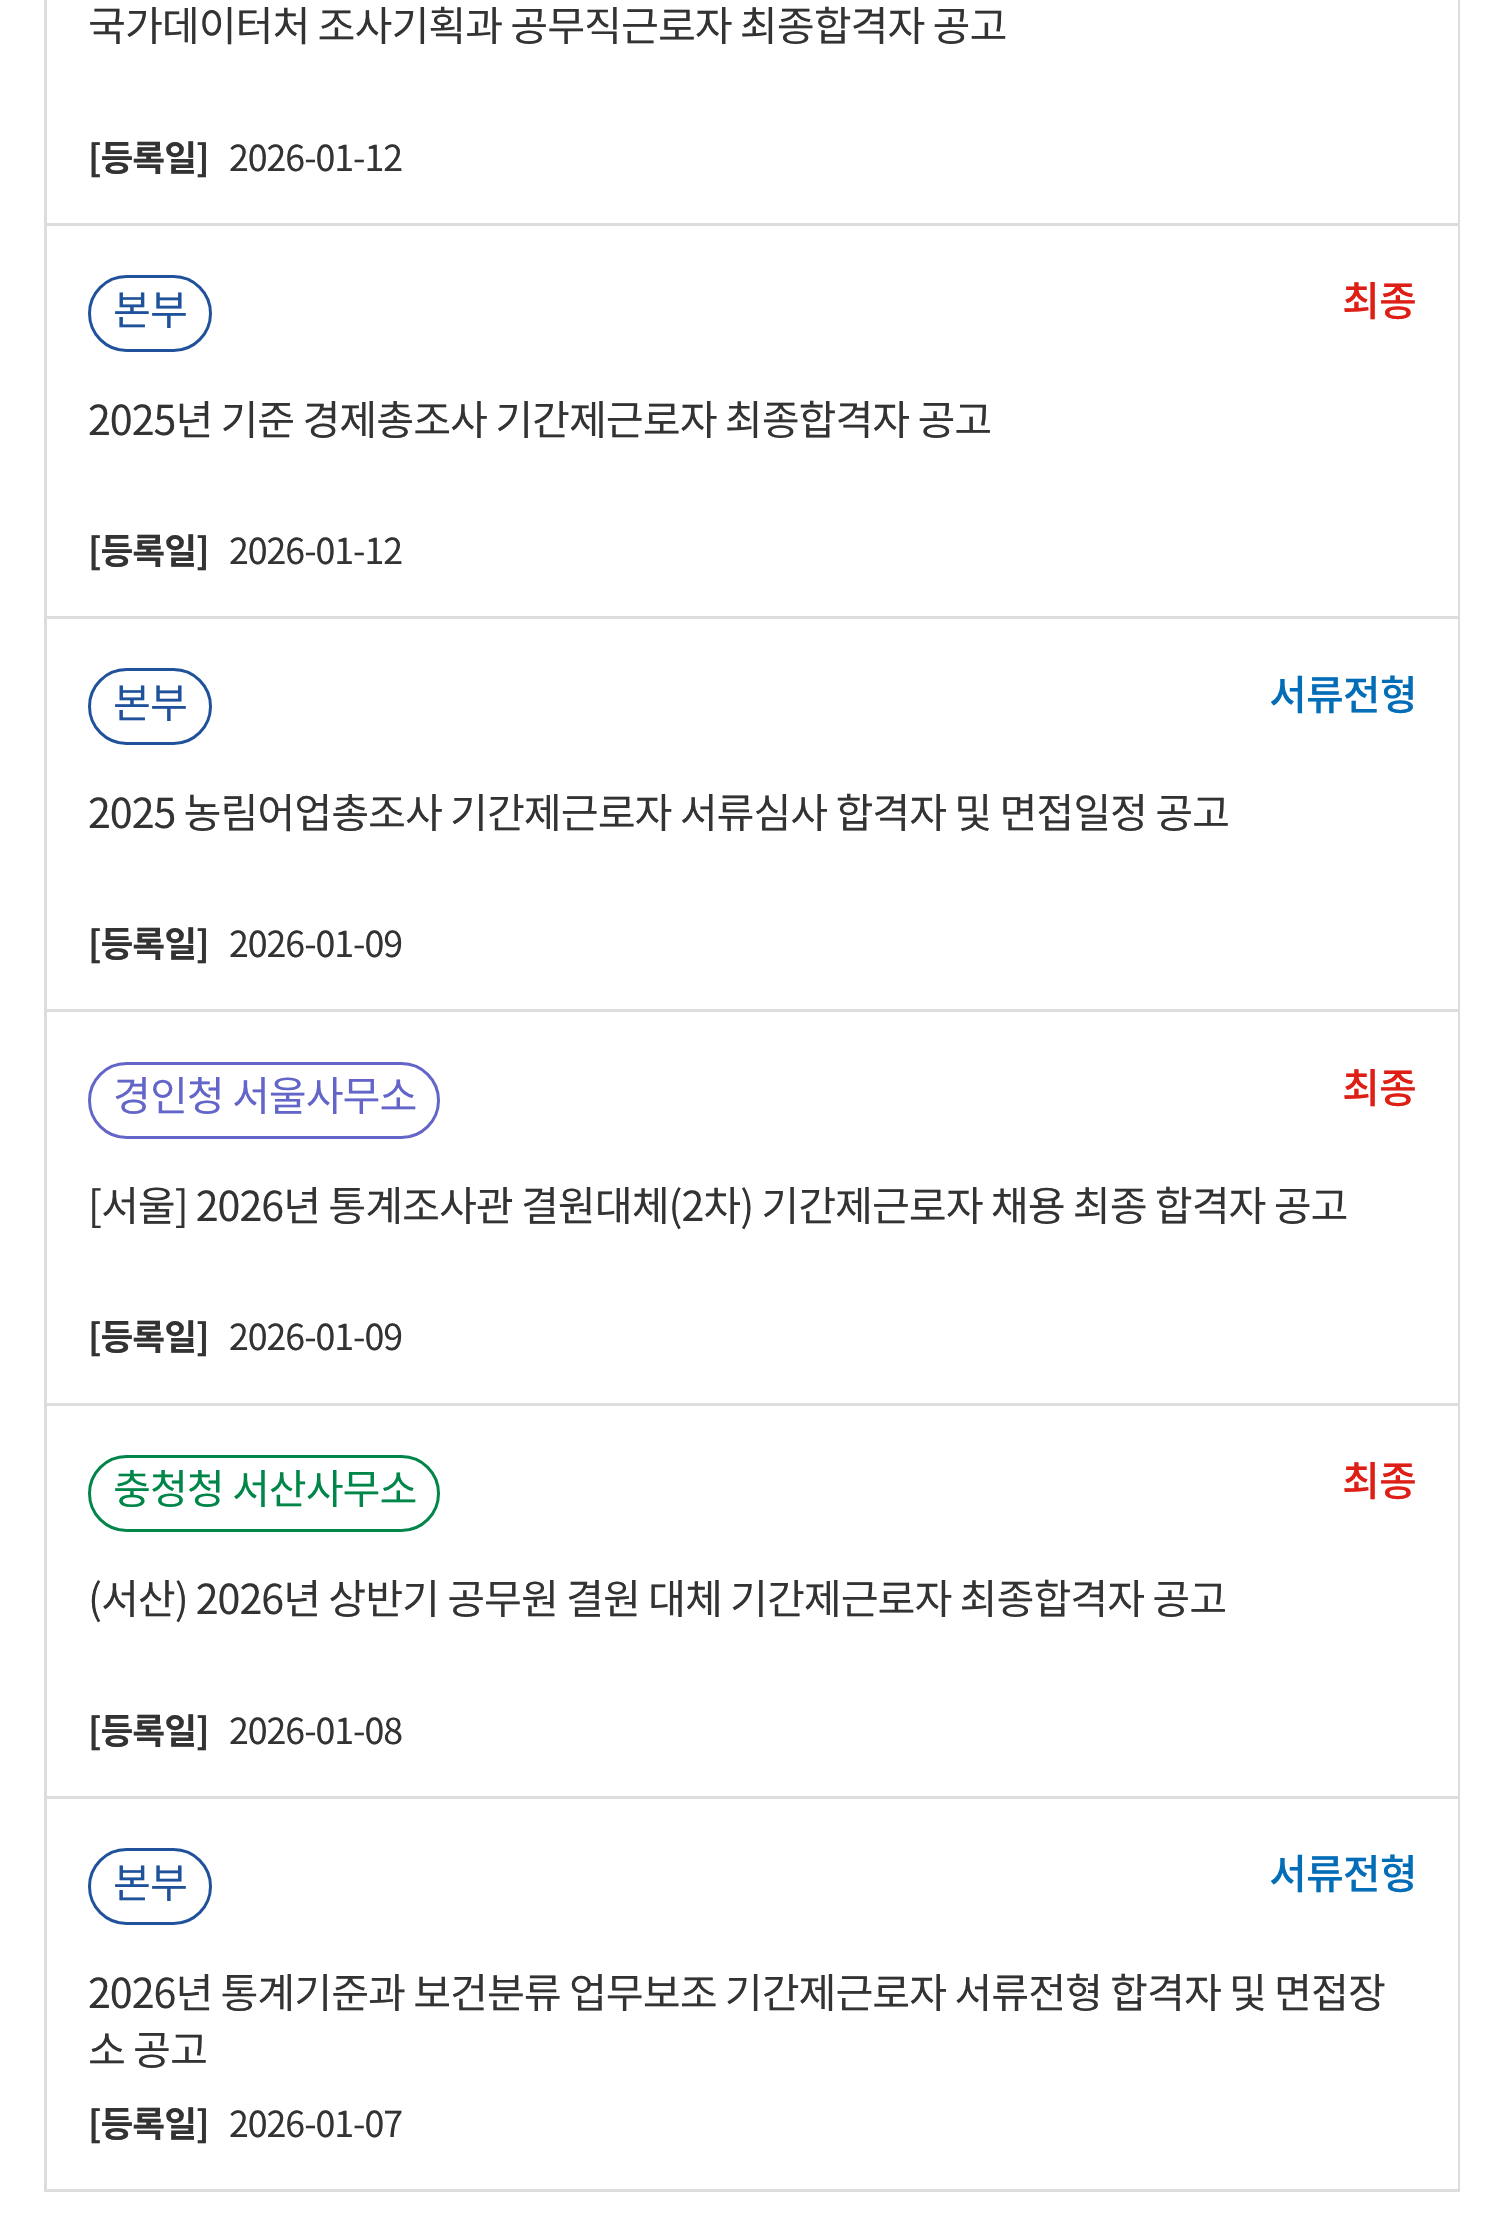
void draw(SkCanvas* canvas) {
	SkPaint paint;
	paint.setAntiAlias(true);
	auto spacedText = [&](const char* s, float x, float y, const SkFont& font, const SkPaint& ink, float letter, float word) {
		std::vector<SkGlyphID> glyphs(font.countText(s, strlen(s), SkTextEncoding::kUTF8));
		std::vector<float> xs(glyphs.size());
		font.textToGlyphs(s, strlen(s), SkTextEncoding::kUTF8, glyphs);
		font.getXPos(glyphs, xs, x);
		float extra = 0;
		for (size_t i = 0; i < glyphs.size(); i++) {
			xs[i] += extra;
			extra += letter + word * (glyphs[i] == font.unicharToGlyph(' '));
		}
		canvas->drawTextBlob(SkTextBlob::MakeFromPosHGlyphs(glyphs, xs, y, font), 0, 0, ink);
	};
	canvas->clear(0xffffffff);
	paint.setColor(0xffdddddd);
	canvas->drawRect(SkRect::MakeXYWH(44, 0, 3, 2192), paint);
	canvas->drawRect(SkRect::MakeXYWH(1458, 0, 2, 1405), paint);
	canvas->drawRect(SkRect::MakeXYWH(47, 223, 1413, 3), paint);
	SkFont f1(fontMgr->matchFamilyStyle("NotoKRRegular", SkFontStyle::Normal()), 41.25);
	f1.setSubpixel(true);
	paint.setColor(0xff333333);
	spacedText("국가데이터처 조사기획과 공무직근로자 최종합격자 공고", 88, 41, f1, paint, -1.05, 0);
	SkFont f2(fontMgr->matchFamilyStyle("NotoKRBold", SkFontStyle::Bold()), 35.75);
	f2.setSubpixel(true);
	spacedText("[등록일]", 88, 171, f2, paint, -1.05, 0);
	SkFont f3(fontMgr->matchFamilyStyle("NotoKRRegular", SkFontStyle::Normal()), 35.75);
	f3.setSubpixel(true);
	spacedText("2026-01-12", 229, 171, f3, paint, -1.05, 0);
	paint.setColor(0xffdddddd);
	canvas->drawRect(SkRect::MakeXYWH(47, 616, 1413, 3), paint);
	paint.setStroke(true);
	paint.setStrokeWidth(3);
	paint.setColor(0xff20529b);
	canvas->drawRoundRect(SkRect::MakeXYWH(89.5, 276.5, 121, 74), 37, 37, paint);
	paint.setStroke(false);
	spacedText("본부", 113, 325, f1, paint, -1.05, 0);
	SkFont f4(fontMgr->matchFamilyStyle("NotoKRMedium", SkFontStyle(500, SkFontStyle::kNormal_Width, SkFontStyle::kUpright_Slant)), 41.25);
	f4.setSubpixel(true);
	paint.setColor(0xffdd1f16);
	spacedText("최종", 1342, 316, f4, paint, -1.05, 0);
	paint.setColor(0xff333333);
	spacedText("2025년 기준 경제총조사 기간제근로자 최종합격자 공고", 88, 435, f1, paint, -1.05, 0);
	spacedText("[등록일]", 88, 564, f2, paint, -1.05, 0);
	spacedText("2026-01-12", 229, 564, f3, paint, -1.05, 0);
	paint.setColor(0xffdddddd);
	canvas->drawRect(SkRect::MakeXYWH(47, 1009, 1413, 3), paint);
	paint.setStroke(true);
	paint.setColor(0xff20529b);
	canvas->drawRoundRect(SkRect::MakeXYWH(89.5, 669.5, 121, 74), 37, 37, paint);
	paint.setStroke(false);
	spacedText("본부", 113, 718, f1, paint, -1.05, 0);
	paint.setColor(0xff036db7);
	spacedText("서류전형", 1269, 710, f4, paint, -1.05, 0);
	paint.setColor(0xff333333);
	spacedText("2025 농림어업총조사 기간제근로자 서류심사 합격자 및 면접일정 공고", 88, 828, f1, paint, -1.05, 0);
	spacedText("[등록일]", 88, 957, f2, paint, -1.05, 0);
	spacedText("2026-01-09", 229, 957, f3, paint, -1.05, 0);
	paint.setColor(0xffdddddd);
	canvas->drawRect(SkRect::MakeXYWH(47, 1403, 1413, 3), paint);
	paint.setStroke(true);
	paint.setColor(0xff6365c9);
	canvas->drawRoundRect(SkRect::MakeXYWH(89.5, 1063.5, 349, 74), 37, 37, paint);
	paint.setStroke(false);
	spacedText("경인청 서울사무소", 113, 1111, f1, paint, -1.05, 0);
	paint.setColor(0xffdd1f16);
	spacedText("최종", 1342, 1103, f4, paint, -1.05, 0);
	paint.setColor(0xff333333);
	spacedText("[서울] 2026년 통계조사관 결원대체(2차) 기간제근로자 채용 최종 합격자 공고", 88, 1221, f1, paint, -1.05, 0);
	spacedText("[등록일]", 88, 1350, f2, paint, -1.05, 0);
	spacedText("2026-01-09", 229, 1350, f3, paint, -1.05, 0);
	paint.setColor(0xffdddddd);
	canvas->drawRect(SkRect::MakeXYWH(1458, 1405, 2, 787), paint);
	canvas->drawRect(SkRect::MakeXYWH(47, 1796, 1413, 3), paint);
	paint.setStroke(true);
	paint.setColor(0xff008648);
	canvas->drawRoundRect(SkRect::MakeXYWH(89.5, 1456.5, 349, 74), 37, 37, paint);
	paint.setStroke(false);
	spacedText("충청청 서산사무소", 113, 1504, f1, paint, -1.05, 0);
	paint.setColor(0xffdd1f16);
	spacedText("최종", 1342, 1496, f4, paint, -1.05, 0);
	paint.setColor(0xff333333);
	spacedText("(서산) 2026년 상반기 공무원 결원 대체 기간제근로자 최종합격자 공고", 88, 1614, f1, paint, -1.05, 0);
	spacedText("[등록일]", 88, 1744, f2, paint, -1.05, 0);
	spacedText("2026-01-08", 229, 1744, f3, paint, -1.05, 0);
	paint.setColor(0xffdddddd);
	canvas->drawRect(SkRect::MakeXYWH(47, 2189, 1413, 3), paint);
	paint.setStroke(true);
	paint.setColor(0xff20529b);
	canvas->drawRoundRect(SkRect::MakeXYWH(89.5, 1849.5, 121, 74), 37, 37, paint);
	paint.setStroke(false);
	spacedText("본부", 113, 1898, f1, paint, -1.05, 0);
	paint.setColor(0xff036db7);
	spacedText("서류전형", 1269, 1889, f4, paint, -1.05, 0);
	paint.setColor(0xff333333);
	spacedText("2026년 통계기준과 보건분류 업무보조 기간제근로자 서류전형 합격자 및 면접장", 88, 2008, f1, paint, -1.05, 0);
	spacedText("소 공고", 88, 2065, f1, paint, -1.05, 0);
	spacedText("[등록일]", 88, 2137, f2, paint, -1.05, 0);
	spacedText("2026-01-07", 229, 2137, f3, paint, -1.05, 0);
}
